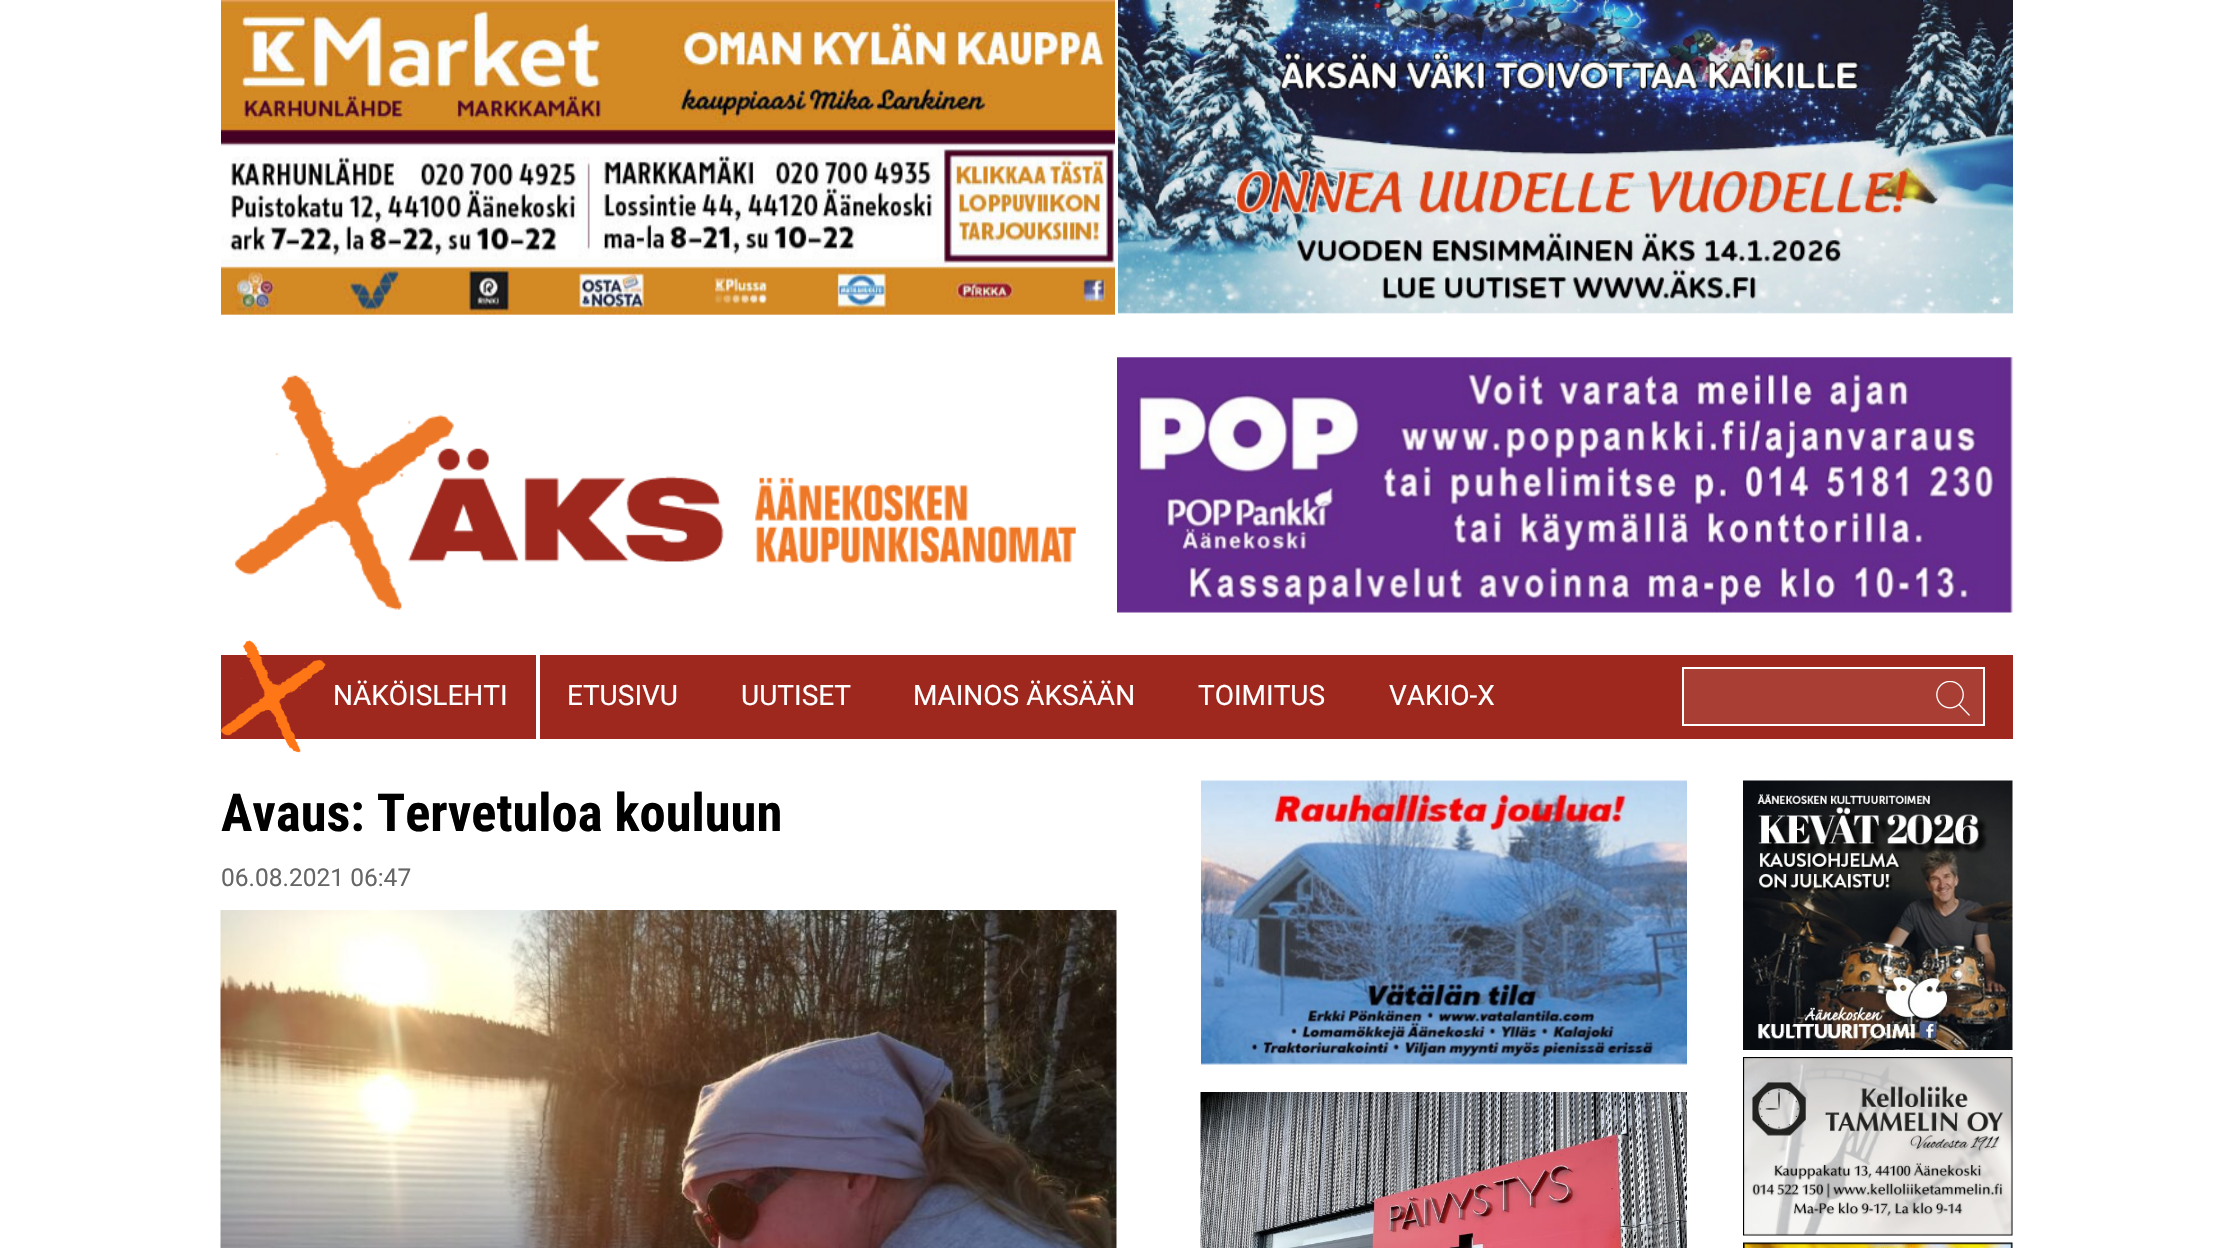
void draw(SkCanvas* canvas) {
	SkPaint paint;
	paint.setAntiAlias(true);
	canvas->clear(0xffffffff);
	canvas->drawImageRect(SkImages::DeferredFromEncodedData(SkData::MakeFromFileName("img1.png")), SkRect::MakeXYWH(221, 0, 894, 315), SkSamplingOptions());
	canvas->drawImageRect(SkImages::DeferredFromEncodedData(SkData::MakeFromFileName("img2.png")), SkRect::MakeXYWH(1118, 0, 895, 314), SkSamplingOptions());
	canvas->drawImageRect(SkImages::DeferredFromEncodedData(SkData::MakeFromFileName("img3.png")), SkRect::MakeXYWH(234, 375, 842, 235), SkSamplingOptions());
	canvas->drawImageRect(SkImages::DeferredFromEncodedData(SkData::MakeFromFileName("img4.png")), SkRect::MakeXYWH(1117, 357, 896, 256), SkSamplingOptions());
	paint.setColor(0xff9f281e);
	canvas->drawRect(SkRect::MakeXYWH(221, 655, 1792, 84), paint);
	paint.setColor(0xffffffff);
	canvas->drawRect(SkRect::MakeXYWH(536, 655, 4, 84), paint);
	canvas->drawImageRect(SkImages::DeferredFromEncodedData(SkData::MakeFromFileName("img5.png")), SkRect::MakeXYWH(220, 640, 106, 113), SkSamplingOptions());
	SkFont f1(fontMgr->matchFamilyStyle("Roboto", SkFontStyle::Normal()), 28);
	f1.setSubpixel(true);
	canvas->drawString("NÄKÖISLEHTI", 333, 705, f1, paint);
	canvas->drawString("ETUSIVU", 567, 705, f1, paint);
	canvas->drawString("UUTISET", 741, 705, f1, paint);
	canvas->drawString("MAINOS ÄKSÄÄN", 913, 705, f1, paint);
	canvas->drawString("TOIMITUS", 1198, 705, f1, paint);
	canvas->drawString("VAKIO-X", 1389, 705, f1, paint);
	paint.setColor(0xffa93e35);
	canvas->drawRect(SkRect::MakeXYWH(1683, 668, 301, 57), paint);
	paint.setStroke(true);
	paint.setStrokeWidth(2);
	paint.setColor(0xffffffff);
	canvas->drawRect(SkRect::MakeXYWH(1683, 668, 301, 57), paint);
	canvas->drawImageRect(SkImages::DeferredFromEncodedData(SkData::MakeFromFileName("img6.png")), SkRect::MakeXYWH(1936, 681, 34, 35), SkSamplingOptions());
	SkFont f2(fontMgr->matchFamilyStyle("Roboto Condensed", SkFontStyle::Bold()), 52.5);
	f2.setSubpixel(true);
	paint.setStroke(false);
	paint.setColor(0xff000000);
	canvas->drawString("Avaus: Tervetuloa kouluun", 221, 831, f2, paint);
	SkFont f3(fontMgr->matchFamilyStyle("Roboto", SkFontStyle::Normal()), 24.5);
	f3.setSubpixel(true);
	paint.setColor(0xff666666);
	canvas->drawString("06.08.2021 06:47", 221, 886, f3, paint);
	canvas->drawImageRect(SkImages::DeferredFromEncodedData(SkData::MakeFromFileName("img7.png")), SkRect::MakeXYWH(220, 910, 897, 338), SkSamplingOptions());
	canvas->drawImageRect(SkImages::DeferredFromEncodedData(SkData::MakeFromFileName("img8.png")), SkRect::MakeXYWH(1201, 780, 486, 285), SkSamplingOptions());
	canvas->drawImageRect(SkImages::DeferredFromEncodedData(SkData::MakeFromFileName("img9.png")), SkRect::MakeXYWH(1200, 1092, 487, 156), SkSamplingOptions());
	canvas->drawImageRect(SkImages::DeferredFromEncodedData(SkData::MakeFromFileName("img10.png")), SkRect::MakeXYWH(1743, 780, 270, 270), SkSamplingOptions());
	canvas->drawImageRect(SkImages::DeferredFromEncodedData(SkData::MakeFromFileName("img11.png")), SkRect::MakeXYWH(1743, 1057, 270, 179), SkSamplingOptions());
	canvas->drawImageRect(SkImages::DeferredFromEncodedData(SkData::MakeFromFileName("img12.png")), SkRect::MakeXYWH(1743, 1242, 270, 6), SkSamplingOptions());
}
